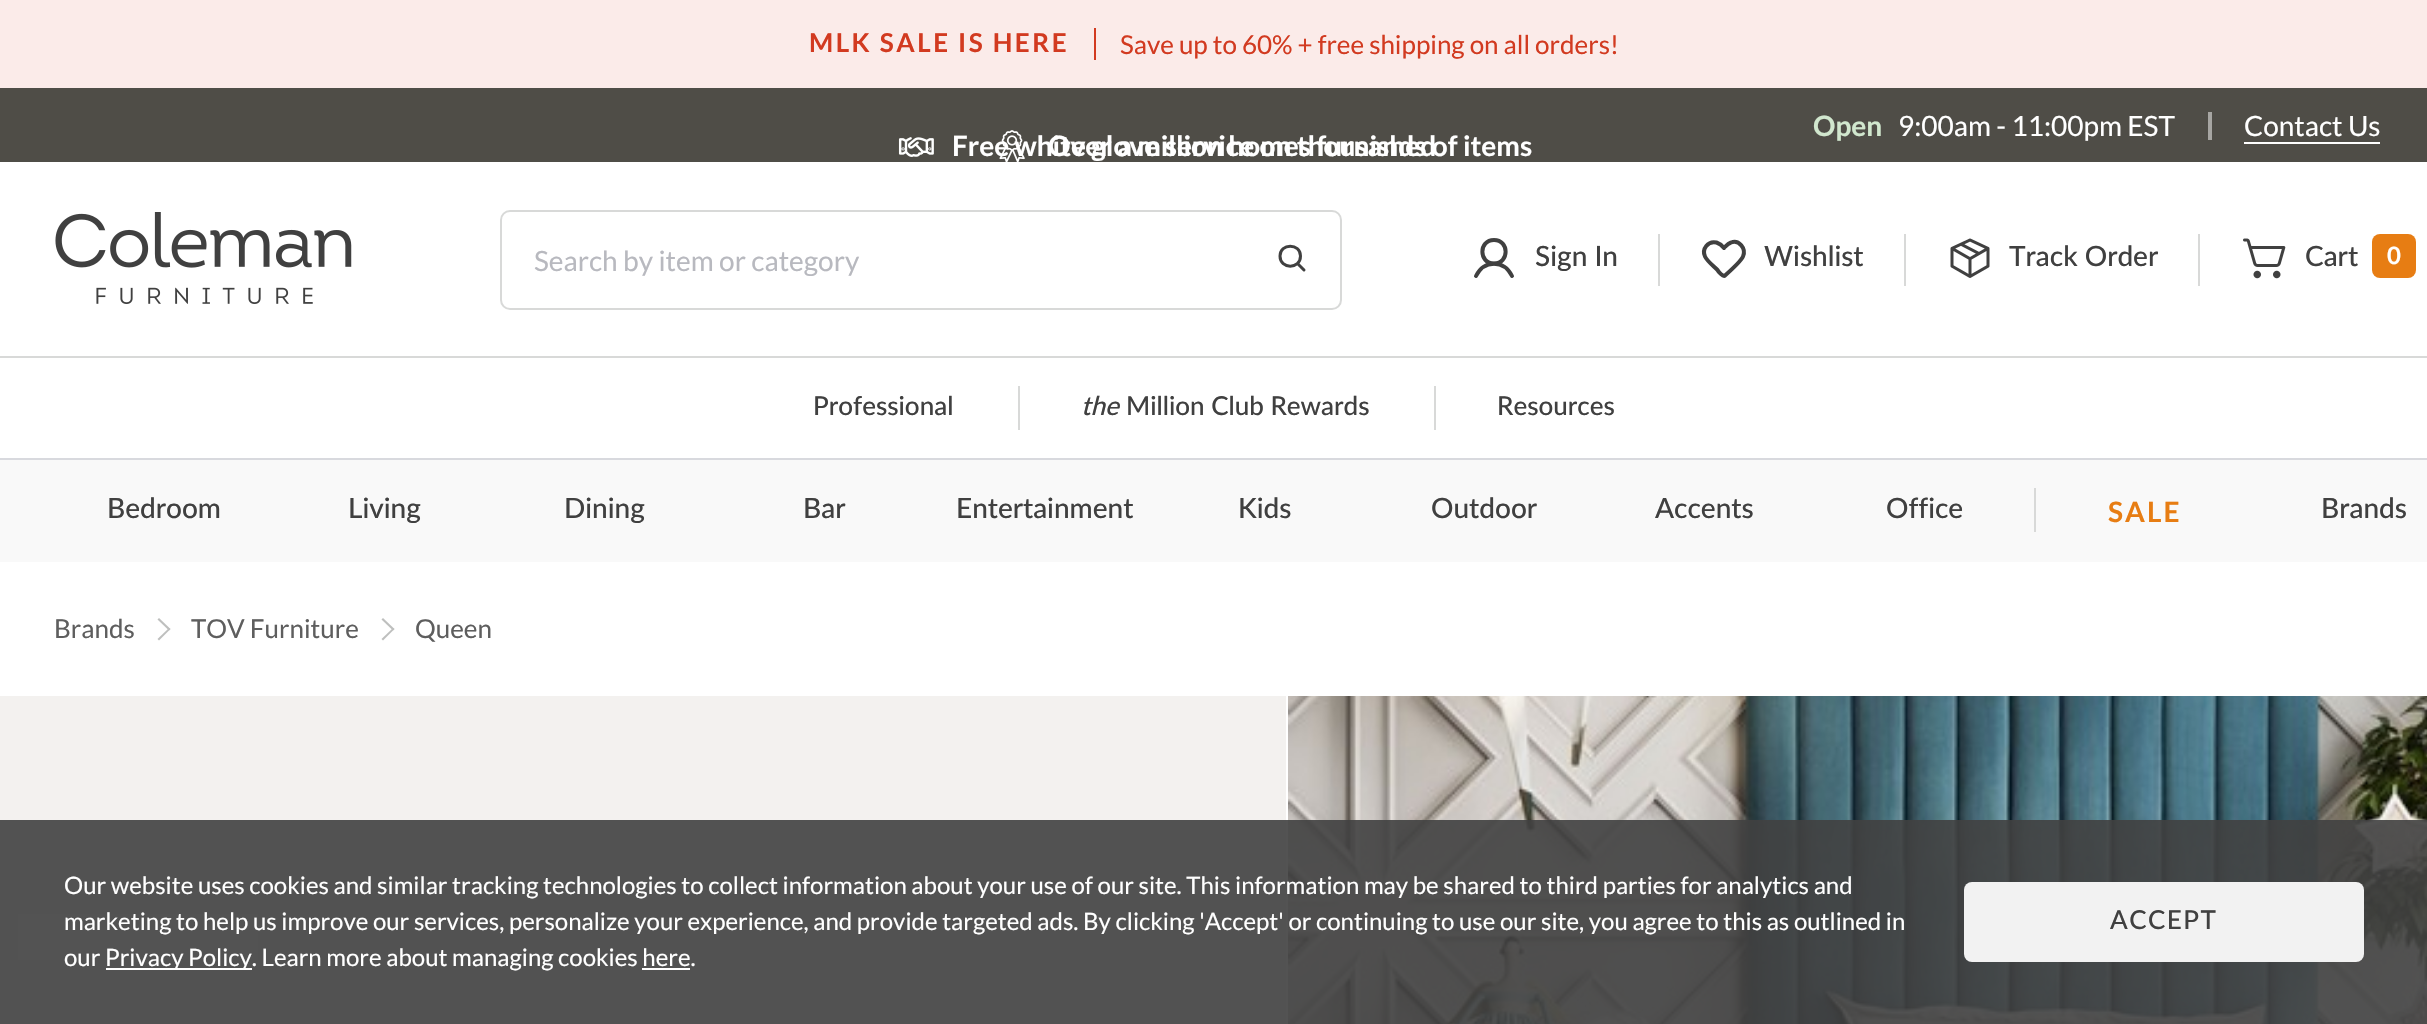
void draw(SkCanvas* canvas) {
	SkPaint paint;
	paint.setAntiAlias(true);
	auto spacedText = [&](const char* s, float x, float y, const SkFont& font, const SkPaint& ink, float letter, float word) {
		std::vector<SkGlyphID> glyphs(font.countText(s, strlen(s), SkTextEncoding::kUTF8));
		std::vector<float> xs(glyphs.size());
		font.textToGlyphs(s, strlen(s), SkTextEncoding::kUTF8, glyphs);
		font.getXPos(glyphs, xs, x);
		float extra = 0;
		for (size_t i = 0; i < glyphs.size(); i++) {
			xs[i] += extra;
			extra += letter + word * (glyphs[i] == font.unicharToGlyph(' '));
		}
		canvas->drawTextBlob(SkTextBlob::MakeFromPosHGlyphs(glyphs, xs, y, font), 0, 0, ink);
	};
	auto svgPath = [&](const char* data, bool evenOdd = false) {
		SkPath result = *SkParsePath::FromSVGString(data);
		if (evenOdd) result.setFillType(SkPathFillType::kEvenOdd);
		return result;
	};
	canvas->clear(0xffffffff);
	paint.setColor(0xfffbebe9);
	canvas->drawRect(SkRect::MakeXYWH(0, 0, 2427, 88), paint);
	SkFont f1(fontMgr->matchFamilyStyle("Lato", SkFontStyle::Bold()), 26);
	f1.setSubpixel(true);
	paint.setColor(0xffd23a20);
	spacedText("MLK SALE IS HERE", 809, 52, f1, paint, 2.5, 0);
	canvas->drawRect(SkRect::MakeXYWH(1094, 28, 2, 32), paint);
	SkFont f2(fontMgr->matchFamilyStyle("Lato", SkFontStyle::Normal()), 26);
	f2.setSubpixel(true);
	canvas->drawString("Save up to 60% + free shipping on all orders!", 1120, 54, f2, paint);
	paint.setColor(0xff4f4d47);
	canvas->drawRect(SkRect::MakeXYWH(0, 88, 2427, 74), paint);
	SkFont f3(fontMgr->matchFamilyStyle("Lato", SkFontStyle::Bold()), 28);
	f3.setSubpixel(true);
	paint.setColor(0xffd1e7ce);
	canvas->drawString("Open", 1813, 136, f3, paint);
	SkFont f4(fontMgr->matchFamilyStyle("Lato", SkFontStyle::Normal()), 28);
	f4.setSubpixel(true);
	paint.setColor(0xffffffff);
	canvas->drawString("9:00am - 11:00pm EST", 1898, 136, f4, paint);
	paint.setColor(0xffa7a6a3);
	canvas->drawRect(SkRect::MakeXYWH(2208, 112, 4, 28), paint);
	paint.setColor(0xffffffff);
	canvas->drawString("Contact Us", 2244, 136, f4, paint);
	canvas->drawRect(SkRect::MakeXYWH(2244, 142, 136, 2), paint);
	canvas->drawImageRect(SkImages::DeferredFromEncodedData(SkData::MakeFromFileName("img1.png")), SkRect::MakeXYWH(898, 137, 36, 20), SkSamplingOptions());
	canvas->drawImageRect(SkImages::DeferredFromEncodedData(SkData::MakeFromFileName("img2.png")), SkRect::MakeXYWH(999, 130, 26, 32), SkSamplingOptions());
	canvas->drawString("Over a million homes furnished", 1048, 156, f3, paint);
	canvas->drawString("Free white glove service on thousands of items", 952, 156, f3, paint);
	canvas->drawImageRect(SkImages::DeferredFromEncodedData(SkData::MakeFromFileName("img3.png")), SkRect::MakeXYWH(55, 212, 297, 92), SkSamplingOptions());
	paint.setStroke(true);
	paint.setStrokeWidth(2);
	paint.setColor(0xffd8d9d8);
	canvas->drawRoundRect(SkRect::MakeXYWH(501, 211, 840, 98), 9, 9, paint);
	paint.setStroke(false);
	paint.setColor(0xffb8b9bf);
	canvas->drawString("Search by item or category", 534, 271, f4, paint);
	paint.setStroke(true);
	paint.setStrokeWidth(3);
	paint.setStrokeCap(SkPaint::kRound_Cap);
	paint.setStrokeJoin(SkPaint::kRound_Join);
	paint.setColor(0xff404040);
	canvas->drawPath(svgPath("M1297.5 263.5L1304 270M1300.5 256C1300.5 269.5 1280 269.5 1280 256C1280 243 1300.5 243 1300.5 256Z"), paint);
	paint.setStroke(false);
	paint.setColor(0xffd8d9d8);
	canvas->drawRect(SkRect::MakeXYWH(1658, 234, 2, 52), paint);
	paint.setStroke(true);
	paint.setStrokeWidth(4);
	paint.setStrokeCap(SkPaint::kButt_Cap);
	paint.setStrokeJoin(SkPaint::kMiter_Join);
	paint.setColor(0xff404040);
	canvas->drawPath(svgPath("M1494 263.5C1509.5 263.5 1509.5 240 1494 240C1478.5 240 1478.5 263.5 1494 263.5Z"), paint);
	paint.setStrokeCap(SkPaint::kRound_Cap);
	paint.setStrokeJoin(SkPaint::kRound_Join);
	canvas->drawPath(svgPath("M1476 276C1484 259.5 1504 259.5 1512 276"), paint);
	SkFont f5(fontMgr->matchFamilyStyle("Lato", SkFontStyle(500, SkFontStyle::kNormal_Width, SkFontStyle::kUpright_Slant)), 28);
	f5.setSubpixel(true);
	paint.setStroke(false);
	canvas->drawString("Sign In", 1535, 266, f5, paint);
	paint.setColor(0xffd8d9d8);
	canvas->drawRect(SkRect::MakeXYWH(1904, 234, 2, 52), paint);
	paint.setStroke(true);
	paint.setColor(0xff404040);
	canvas->drawPath(svgPath("M1725 275.5C1729.5 271.5 1741 261 1743 256.5C1746.5 248.5 1739 239.5 1731 242.5C1728 243.5 1726 246 1724 248C1722 245.5 1719.5 243.5 1716.5 242.5C1708 240.5 1701.5 249 1705 256.5C1707 261 1714 266.5 1717.5 270C1718 271 1723 277.5 1725 275.5Z"), paint);
	paint.setStroke(false);
	canvas->drawString("Wishlist", 1764, 266, f5, paint);
	paint.setColor(0xffd8d9d8);
	canvas->drawRect(SkRect::MakeXYWH(2198, 234, 2, 52), paint);
	canvas->drawImageRect(SkImages::DeferredFromEncodedData(SkData::MakeFromFileName("img4.png")), SkRect::MakeXYWH(1950, 238, 40, 40), SkSamplingOptions());
	paint.setColor(0xff404040);
	canvas->drawString("Track Order", 2009, 266, f5, paint);
	canvas->drawImageRect(SkImages::DeferredFromEncodedData(SkData::MakeFromFileName("img5.png")), SkRect::MakeXYWH(2243, 238, 43, 41), SkSamplingOptions());
	canvas->drawString("Cart", 2305, 266, f5, paint);
	paint.setColor(0xffe77d13);
	canvas->drawRoundRect(SkRect::MakeXYWH(2372, 234, 44, 44), 8, 8, paint);
	SkFont f6(fontMgr->matchFamilyStyle("Lato", SkFontStyle::Bold()), 24);
	f6.setSubpixel(true);
	paint.setColor(0xffffffff);
	canvas->drawString("0", 2387, 264, f6, paint);
	paint.setColor(0xfff9f9f9);
	canvas->drawRect(SkRect::MakeXYWH(0, 460, 2427, 102), paint);
	paint.setColor(0xffd8d9d8);
	canvas->drawRect(SkRect::MakeXYWH(0, 356, 2427, 2), paint);
	paint.setColor(0xffd8d9de);
	canvas->drawRect(SkRect::MakeXYWH(0, 458, 2427, 2), paint);
	SkFont f7(fontMgr->matchFamilyStyle("Lato", SkFontStyle(500, SkFontStyle::kNormal_Width, SkFontStyle::kUpright_Slant)), 26);
	f7.setSubpixel(true);
	paint.setColor(0xff404040);
	canvas->drawString("Professional", 813, 415, f7, paint);
	paint.setColor(0xffd8d9d8);
	canvas->drawRect(SkRect::MakeXYWH(1018, 386, 2, 44), paint);
	SkFont f8(fontMgr->matchFamilyStyle("Lato", SkFontStyle(500, SkFontStyle::kNormal_Width, SkFontStyle::kItalic_Slant)), 26);
	f8.setSubpixel(true);
	paint.setColor(0xff404040);
	canvas->drawString("the", 1081, 415, f8, paint);
	canvas->drawString("Million Club Rewards", 1126, 415, f7, paint);
	paint.setColor(0xffd8d9d8);
	canvas->drawRect(SkRect::MakeXYWH(1434, 386, 2, 44), paint);
	paint.setColor(0xff404040);
	canvas->drawString("Resources", 1497, 415, f7, paint);
	canvas->drawString("Bedroom", 107, 518, f5, paint);
	canvas->drawString("Living", 348, 518, f5, paint);
	canvas->drawString("Dining", 564, 518, f5, paint);
	canvas->drawString("Bar", 803, 518, f5, paint);
	canvas->drawString("Entertainment", 956, 518, f5, paint);
	canvas->drawString("Kids", 1238, 518, f5, paint);
	canvas->drawString("Outdoor", 1431, 518, f5, paint);
	canvas->drawString("Accents", 1655, 518, f5, paint);
	canvas->drawString("Office", 1886, 518, f5, paint);
	paint.setColor(0xffd8d9d8);
	canvas->drawRect(SkRect::MakeXYWH(2034, 488, 2, 44), paint);
	paint.setColor(0xffe77d13);
	spacedText("SALE", 2108, 522, f3, paint, 2, 0);
	paint.setColor(0xff404040);
	canvas->drawString("Brands", 2321, 518, f5, paint);
	paint.setColor(0xff5e5e5e);
	canvas->drawString("Brands", 54, 638, f2, paint);
	paint.setColor(0xffbebfbe);
	canvas->drawPath(svgPath("M157.5 619.5L159 618L170.5 629L169 630.5Z"), paint);
	canvas->drawPath(svgPath("M157.5 639L169 628L170.5 629L159 640.5Z"), paint);
	paint.setColor(0xff5e5e5e);
	canvas->drawString("TOV Furniture", 191, 638, f2, paint);
	paint.setColor(0xffbebfbe);
	canvas->drawPath(svgPath("M381.5 619.5L383 618L394.5 629L393 630.5Z"), paint);
	canvas->drawPath(svgPath("M381.5 639L393 628L394.5 629L383 640.5Z"), paint);
	paint.setColor(0xff5e5e5e);
	canvas->drawString("Queen", 415, 638, f2, paint);
	paint.setColor(0xfff3f1ef);
	canvas->drawRect(SkRect::MakeXYWH(0, 696, 1286, 328), paint);
	paint.setColor(0xffffffff);
	canvas->drawRect(SkRect::MakeXYWH(18, 914, 240, 46), paint);
	canvas->drawImageRect(SkImages::DeferredFromEncodedData(SkData::MakeFromFileName("img6.png")), SkRect::MakeXYWH(1288, 696, 1139, 328), SkSamplingOptions());
	paint.setColor(0xe6404040);
	canvas->drawRect(SkRect::MakeXYWH(0, 820, 2427, 204), paint);
	SkFont f9(fontMgr->matchFamilyStyle("Lato", SkFontStyle::Normal()), 24);
	f9.setSubpixel(true);
	paint.setColor(0xffffffff);
	canvas->drawString("Our website uses cookies and similar tracking technologies to collect information about your use of our site. This information may be shared to third parties for analytics and", 64, 894, f9, paint);
	canvas->drawString("marketing to help us improve our services, personalize your experience, and provide targeted ads. By clicking 'Accept' or continuing to use our site, you agree to this as outlined in", 64, 930, f9, paint);
	canvas->drawString("our", 64, 966, f9, paint);
	canvas->drawRect(SkRect::MakeXYWH(106, 968, 146, 2), paint);
	canvas->drawString("Privacy Policy. Learn more about managing cookies here.", 105, 966, f9, paint);
	canvas->drawRect(SkRect::MakeXYWH(642, 968, 48, 2), paint);
	paint.setColor(0xfff2f2f2);
	canvas->drawRoundRect(SkRect::MakeXYWH(1964, 882, 400, 80), 8, 8, paint);
	paint.setColor(0xff404040);
	spacedText("ACCEPT", 2110, 929, f7, paint, 1.5, 0);
}
